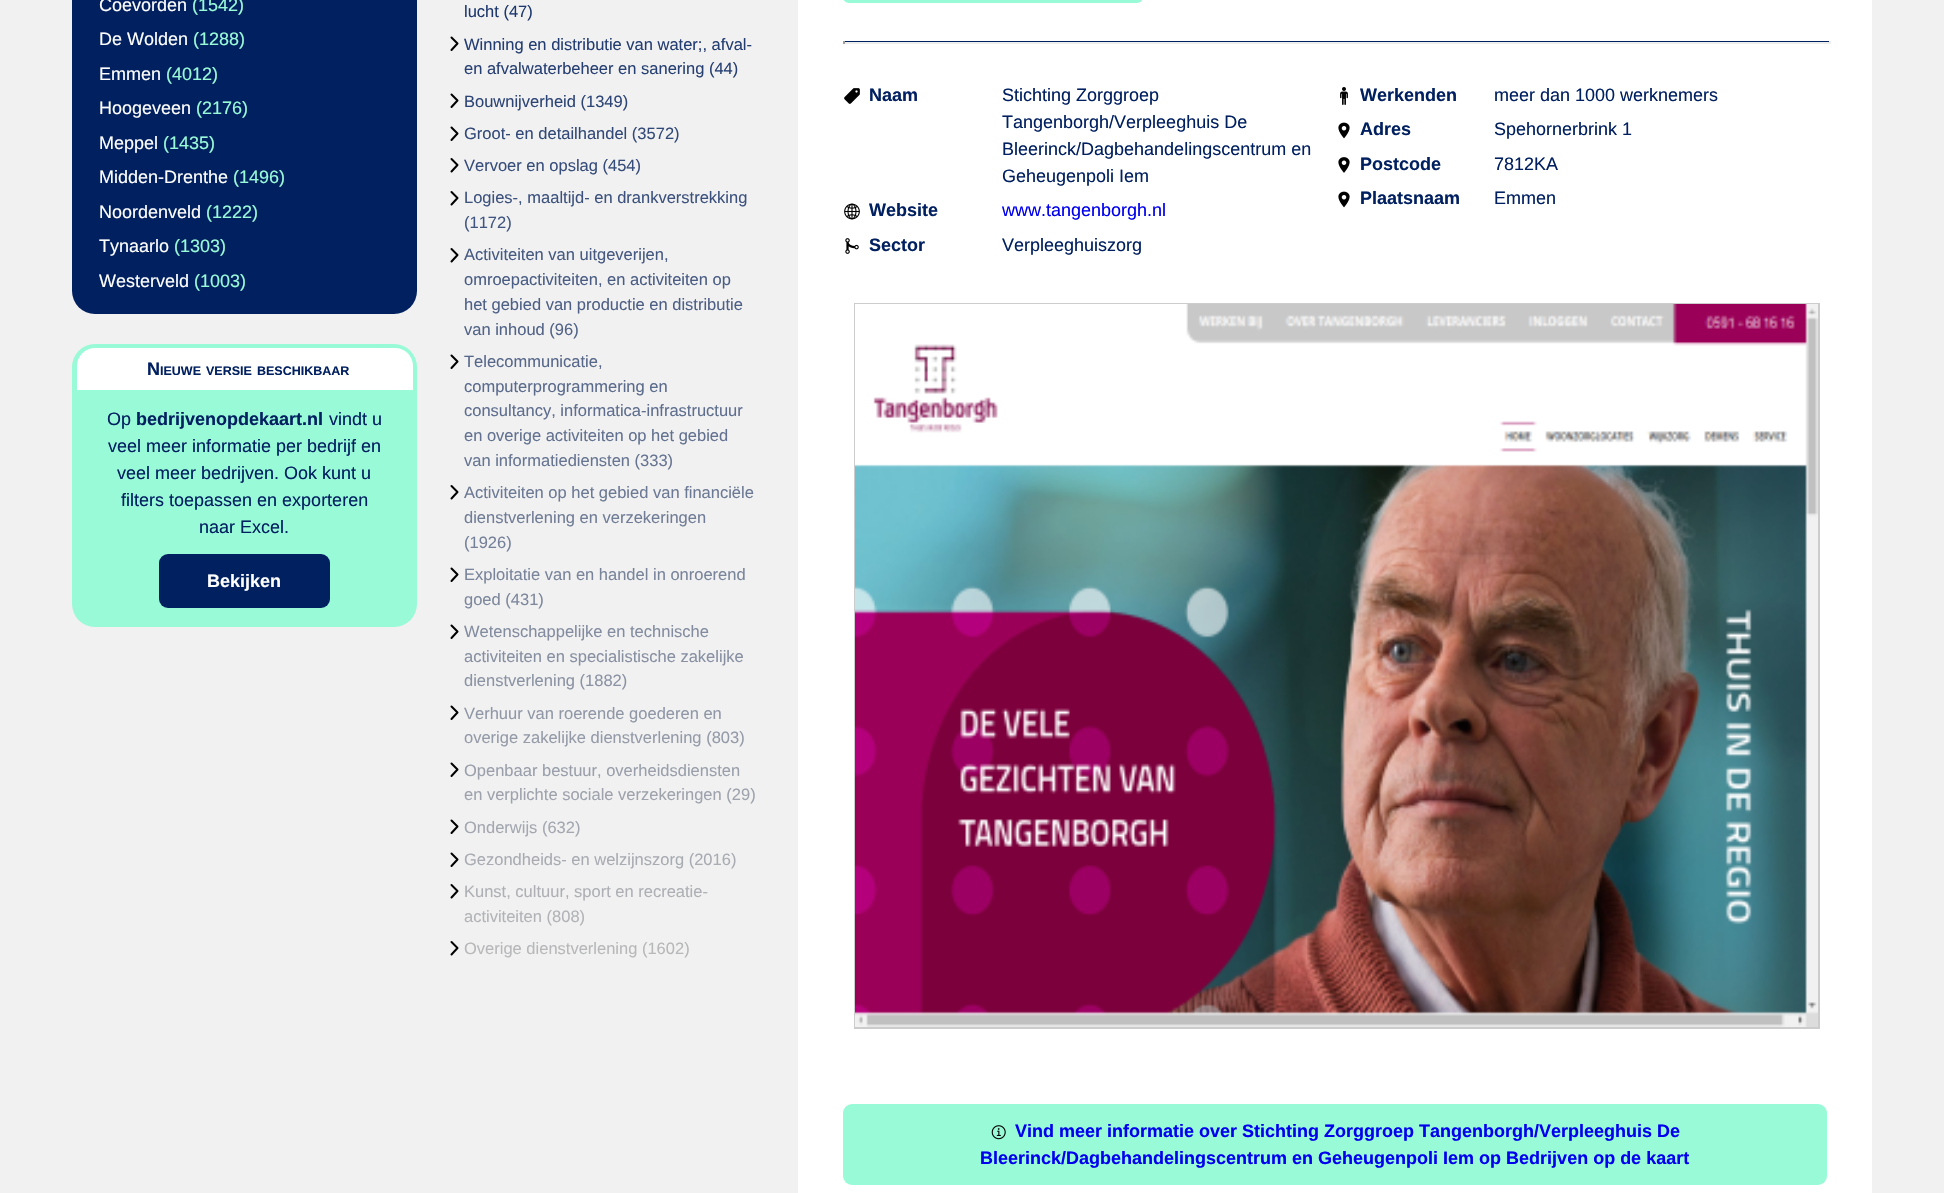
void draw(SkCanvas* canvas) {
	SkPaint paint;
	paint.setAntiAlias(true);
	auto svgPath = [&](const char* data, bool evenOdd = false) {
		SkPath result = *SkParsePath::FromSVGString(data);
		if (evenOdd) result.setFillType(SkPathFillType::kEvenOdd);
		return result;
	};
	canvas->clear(0xfff1f1f1);
	paint.setColor(0xff012060);
	canvas->drawRoundRect(SkRect::MakeXYWH(72, -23, 345, 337), 23, 23, paint);
	SkFont f1(fontMgr->matchFamilyStyle("Liberation Sans", SkFontStyle::Normal()), 18);
	f1.setSubpixel(true);
	paint.setColor(0xffffffff);
	canvas->drawString("Coevorden", 99, 11, f1, paint);
	paint.setColor(0xff99fad8);
	canvas->drawString("(1542)", 192, 11, f1, paint);
	paint.setColor(0xffffffff);
	canvas->drawString("De Wolden", 99, 45, f1, paint);
	paint.setColor(0xff99fad8);
	canvas->drawString("(1288)", 193, 45, f1, paint);
	paint.setColor(0xffffffff);
	canvas->drawString("Emmen", 99, 80, f1, paint);
	paint.setColor(0xff99fad8);
	canvas->drawString("(4012)", 166, 80, f1, paint);
	paint.setColor(0xffffffff);
	canvas->drawString("Hoogeveen", 99, 114, f1, paint);
	paint.setColor(0xff99fad8);
	canvas->drawString("(2176)", 196, 114, f1, paint);
	paint.setColor(0xffffffff);
	canvas->drawString("Meppel", 99, 149, f1, paint);
	paint.setColor(0xff99fad8);
	canvas->drawString("(1435)", 163, 149, f1, paint);
	paint.setColor(0xffffffff);
	canvas->drawString("Midden-Drenthe", 99, 183, f1, paint);
	paint.setColor(0xff99fad8);
	canvas->drawString("(1496)", 233, 183, f1, paint);
	paint.setColor(0xffffffff);
	canvas->drawString("Noordenveld", 99, 218, f1, paint);
	paint.setColor(0xff99fad8);
	canvas->drawString("(1222)", 206, 218, f1, paint);
	paint.setColor(0xffffffff);
	canvas->drawString("Tynaarlo", 99, 252, f1, paint);
	paint.setColor(0xff99fad8);
	canvas->drawString("(1303)", 174, 252, f1, paint);
	paint.setColor(0xffffffff);
	canvas->drawString("Westerveld", 99, 287, f1, paint);
	paint.setColor(0xff99fad8);
	canvas->drawString("(1003)", 194, 287, f1, paint);
	canvas->drawRoundRect(SkRect::MakeXYWH(72, 344, 345, 283), 23, 23, paint);
	paint.setColor(0xffffffff);
	canvas->drawPath(svgPath("M95 348H395C405 348 413 356 413 366V390H77V366C77 356 85 348 95 348Z"), paint);
	SkFont f2(fontMgr->matchFamilyStyle("Liberation Sans", SkFontStyle::Bold()), 18);
	f2.setSubpixel(true);
	paint.setColor(0xff012060);
	canvas->drawString("N", 147, 375, f2, paint);
	SkFont f3(fontMgr->matchFamilyStyle("Liberation Sans", SkFontStyle::Bold()), 12.5);
	f3.setSubpixel(true);
	canvas->drawString("IEUWE", 160, 375, f3, paint);
	canvas->drawString("VERSIE", 206, 375, f3, paint);
	canvas->drawString("BESCHIKBAAR", 257, 375, f3, paint);
	canvas->drawString("Op", 107, 425, f1, paint);
	canvas->drawString("bedrijvenopdekaart.nl", 136, 425, f2, paint);
	canvas->drawString("vindt u", 329, 425, f1, paint);
	canvas->drawString("veel meer informatie per bedrijf en", 108, 452, f1, paint);
	canvas->drawString("veel meer bedrijven. Ook kunt u", 117, 479, f1, paint);
	canvas->drawString("filters toepassen en exporteren", 121, 506, f1, paint);
	canvas->drawString("naar Excel.", 199, 533, f1, paint);
	canvas->drawRoundRect(SkRect::MakeXYWH(159, 554, 171, 54), 9, 9, paint);
	paint.setColor(0xffffffff);
	canvas->drawString("Bekijken", 207, 587, f2, paint);
	SkFont f4(fontMgr->matchFamilyStyle("Liberation Sans", SkFontStyle::Normal()), 16.5);
	f4.setSubpixel(true);
	{
		const SkColor colors[] = {0xff012060, 0xffbbbbbb};
		const float stops[] = {0, 1};
		const SkPoint ends[] = {{605, -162}, {604, 976}};
		paint.setShader(SkGradientShader::MakeLinear(ends, colors, stops, 2, SkTileMode::kClamp));
		paint.setAlpha(255);
	}
	canvas->drawString("lucht (47)", 464, 17, f4, paint);
	paint.setStroke(true);
	paint.setStrokeWidth(2);
	paint.setStrokeCap(SkPaint::kRound_Cap);
	paint.setStrokeJoin(SkPaint::kRound_Join);
	paint.setShader(nullptr);
	paint.setColor(0xff000000);
	canvas->drawPath(svgPath("M451.5 37.5L457.5 43.5L451.5 50"), paint);
	paint.setStroke(false);
	{
		const SkColor colors[] = {0xff012060, 0xffbbbbbb};
		const float stops[] = {0, 1};
		const SkPoint ends[] = {{605, -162}, {604, 976}};
		paint.setShader(SkGradientShader::MakeLinear(ends, colors, stops, 2, SkTileMode::kClamp));
		paint.setAlpha(255);
	}
	canvas->drawString("Winning en distributie van water;, afval-", 464, 50, f4, paint);
	canvas->drawString("en afvalwaterbeheer en sanering (44)", 464, 74, f4, paint);
	paint.setStroke(true);
	paint.setShader(nullptr);
	paint.setColor(0xff000000);
	canvas->drawPath(svgPath("M451.5 94.5L457.5 100.5L451.5 107M451.5 127.5L457.5 133.5L451.5 140"), paint);
	paint.setStroke(false);
	{
		const SkColor colors[] = {0xff012060, 0xffbbbbbb};
		const float stops[] = {0, 1};
		const SkPoint ends[] = {{605, -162}, {604, 976}};
		paint.setShader(SkGradientShader::MakeLinear(ends, colors, stops, 2, SkTileMode::kClamp));
		paint.setAlpha(255);
	}
	canvas->drawString("Bouwnijverheid (1349)", 464, 107, f4, paint);
	canvas->drawString("Groot- en detailhandel (3572)", 464, 139, f4, paint);
	paint.setStroke(true);
	paint.setShader(nullptr);
	paint.setColor(0xff000000);
	canvas->drawPath(svgPath("M451.5 159L457.5 165L451.5 171.5M451.5 192L457.5 198L451.5 204.5"), paint);
	paint.setStroke(false);
	{
		const SkColor colors[] = {0xff012060, 0xffbbbbbb};
		const float stops[] = {0, 1};
		const SkPoint ends[] = {{605, -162}, {604, 976}};
		paint.setShader(SkGradientShader::MakeLinear(ends, colors, stops, 2, SkTileMode::kClamp));
		paint.setAlpha(255);
	}
	canvas->drawString("Vervoer en opslag (454)", 464, 171, f4, paint);
	canvas->drawString("Logies-, maaltijd- en drankverstrekking", 464, 203, f4, paint);
	canvas->drawString("(1172)", 464, 228, f4, paint);
	paint.setStroke(true);
	paint.setShader(nullptr);
	paint.setColor(0xff000000);
	canvas->drawPath(svgPath("M451.5 249L457.5 255L451.5 261.5"), paint);
	paint.setStroke(false);
	{
		const SkColor colors[] = {0xff012060, 0xffbbbbbb};
		const float stops[] = {0, 1};
		const SkPoint ends[] = {{605, -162}, {604, 976}};
		paint.setShader(SkGradientShader::MakeLinear(ends, colors, stops, 2, SkTileMode::kClamp));
		paint.setAlpha(255);
	}
	canvas->drawString("Activiteiten van uitgeverijen,", 464, 260, f4, paint);
	canvas->drawString("omroepactiviteiten, en activiteiten op", 464, 285, f4, paint);
	canvas->drawString("het gebied van productie en distributie", 464, 310, f4, paint);
	canvas->drawString("van inhoud (96)", 464, 335, f4, paint);
	paint.setStroke(true);
	paint.setShader(nullptr);
	paint.setColor(0xff000000);
	canvas->drawPath(svgPath("M451.5 355.5L457.5 361.5L451.5 368"), paint);
	paint.setStroke(false);
	{
		const SkColor colors[] = {0xff012060, 0xffbbbbbb};
		const float stops[] = {0, 1};
		const SkPoint ends[] = {{605, -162}, {604, 976}};
		paint.setShader(SkGradientShader::MakeLinear(ends, colors, stops, 2, SkTileMode::kClamp));
		paint.setAlpha(255);
	}
	canvas->drawString("Telecommunicatie,", 464, 367, f4, paint);
	canvas->drawString("computerprogrammering en", 464, 392, f4, paint);
	canvas->drawString("consultancy, informatica-infrastructuur", 464, 416, f4, paint);
	canvas->drawString("en overige activiteiten op het gebied", 464, 441, f4, paint);
	canvas->drawString("van informatiediensten (333)", 464, 466, f4, paint);
	paint.setStroke(true);
	paint.setShader(nullptr);
	paint.setColor(0xff000000);
	canvas->drawPath(svgPath("M451.5 486L457.5 492L451.5 498.5"), paint);
	paint.setStroke(false);
	{
		const SkColor colors[] = {0xff012060, 0xffbbbbbb};
		const float stops[] = {0, 1};
		const SkPoint ends[] = {{605, -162}, {604, 976}};
		paint.setShader(SkGradientShader::MakeLinear(ends, colors, stops, 2, SkTileMode::kClamp));
		paint.setAlpha(255);
	}
	canvas->drawString("Activiteiten op het gebied van financiële", 464, 498, f4, paint);
	canvas->drawString("dienstverlening en verzekeringen", 464, 523, f4, paint);
	canvas->drawString("(1926)", 464, 548, f4, paint);
	paint.setStroke(true);
	paint.setShader(nullptr);
	paint.setColor(0xff000000);
	canvas->drawPath(svgPath("M451.5 568.5L457.5 574.5L451.5 581"), paint);
	paint.setStroke(false);
	{
		const SkColor colors[] = {0xff012060, 0xffbbbbbb};
		const float stops[] = {0, 1};
		const SkPoint ends[] = {{605, -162}, {604, 976}};
		paint.setShader(SkGradientShader::MakeLinear(ends, colors, stops, 2, SkTileMode::kClamp));
		paint.setAlpha(255);
	}
	canvas->drawString("Exploitatie van en handel in onroerend", 464, 580, f4, paint);
	canvas->drawString("goed (431)", 464, 605, f4, paint);
	paint.setStroke(true);
	paint.setShader(nullptr);
	paint.setColor(0xff000000);
	canvas->drawPath(svgPath("M451.5 625.5L457.5 631.5L451.5 638"), paint);
	paint.setStroke(false);
	{
		const SkColor colors[] = {0xff012060, 0xffbbbbbb};
		const float stops[] = {0, 1};
		const SkPoint ends[] = {{605, -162}, {604, 976}};
		paint.setShader(SkGradientShader::MakeLinear(ends, colors, stops, 2, SkTileMode::kClamp));
		paint.setAlpha(255);
	}
	canvas->drawString("Wetenschappelijke en technische", 464, 637, f4, paint);
	canvas->drawString("activiteiten en specialistische zakelijke", 464, 662, f4, paint);
	canvas->drawString("dienstverlening (1882)", 464, 686, f4, paint);
	paint.setStroke(true);
	paint.setShader(nullptr);
	paint.setColor(0xff000000);
	canvas->drawPath(svgPath("M451.5 706.5L457.5 712.5L451.5 719"), paint);
	paint.setStroke(false);
	{
		const SkColor colors[] = {0xff012060, 0xffbbbbbb};
		const float stops[] = {0, 1};
		const SkPoint ends[] = {{605, -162}, {604, 976}};
		paint.setShader(SkGradientShader::MakeLinear(ends, colors, stops, 2, SkTileMode::kClamp));
		paint.setAlpha(255);
	}
	canvas->drawString("Verhuur van roerende goederen en", 464, 719, f4, paint);
	canvas->drawString("overige zakelijke dienstverlening (803)", 464, 743, f4, paint);
	paint.setStroke(true);
	paint.setShader(nullptr);
	paint.setColor(0xff000000);
	canvas->drawPath(svgPath("M451.5 763.5L457.5 769.5L451.5 776"), paint);
	paint.setStroke(false);
	{
		const SkColor colors[] = {0xff012060, 0xffbbbbbb};
		const float stops[] = {0, 1};
		const SkPoint ends[] = {{605, -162}, {604, 976}};
		paint.setShader(SkGradientShader::MakeLinear(ends, colors, stops, 2, SkTileMode::kClamp));
		paint.setAlpha(255);
	}
	canvas->drawString("Openbaar bestuur, overheidsdiensten", 464, 776, f4, paint);
	canvas->drawString("en verplichte sociale verzekeringen (29)", 464, 800, f4, paint);
	paint.setStroke(true);
	paint.setShader(nullptr);
	paint.setColor(0xff000000);
	canvas->drawPath(svgPath("M451.5 820.5L457.5 826.5L451.5 833M451.5 853.5L457.5 859.5L451.5 866"), paint);
	paint.setStroke(false);
	{
		const SkColor colors[] = {0xff012060, 0xffbbbbbb};
		const float stops[] = {0, 1};
		const SkPoint ends[] = {{605, -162}, {604, 976}};
		paint.setShader(SkGradientShader::MakeLinear(ends, colors, stops, 2, SkTileMode::kClamp));
		paint.setAlpha(255);
	}
	canvas->drawString("Onderwijs (632)", 464, 833, f4, paint);
	canvas->drawString("Gezondheids- en welzijnszorg (2016)", 464, 865, f4, paint);
	paint.setStroke(true);
	paint.setShader(nullptr);
	paint.setColor(0xff000000);
	canvas->drawPath(svgPath("M451.5 885L457.5 891L451.5 897.5"), paint);
	paint.setStroke(false);
	{
		const SkColor colors[] = {0xff012060, 0xffbbbbbb};
		const float stops[] = {0, 1};
		const SkPoint ends[] = {{605, -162}, {604, 976}};
		paint.setShader(SkGradientShader::MakeLinear(ends, colors, stops, 2, SkTileMode::kClamp));
		paint.setAlpha(255);
	}
	canvas->drawString("Kunst, cultuur, sport en recreatie-", 464, 897, f4, paint);
	canvas->drawString("activiteiten (808)", 464, 922, f4, paint);
	paint.setStroke(true);
	paint.setShader(nullptr);
	paint.setColor(0xff000000);
	canvas->drawPath(svgPath("M451.5 942L457.5 948L451.5 954.5"), paint);
	paint.setStroke(false);
	{
		const SkColor colors[] = {0xff012060, 0xffbbbbbb};
		const float stops[] = {0, 1};
		const SkPoint ends[] = {{605, -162}, {604, 976}};
		paint.setShader(SkGradientShader::MakeLinear(ends, colors, stops, 2, SkTileMode::kClamp));
		paint.setAlpha(255);
	}
	canvas->drawString("Overige dienstverlening (1602)", 464, 954, f4, paint);
	paint.setShader(nullptr);
	paint.setColor(0xffffffff);
	canvas->drawRect(SkRect::MakeXYWH(798, 0, 1074, 1193), paint);
	paint.setColor(0xff99fad8);
	canvas->drawRoundRect(SkRect::MakeXYWH(843, -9, 300, 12), 9, 9, paint);
	paint.setColor(0xff012060);
	canvas->drawRect(SkRect::MakeXYWH(843, 41, 987, 1), paint);
	paint.setColor(0xffeeeeee);
	canvas->drawRect(SkRect::MakeXYWH(1829, 41, 2, 3), paint);
	canvas->drawRect(SkRect::MakeXYWH(843, 42, 987, 2), paint);
	paint.setColor(0xff9f9f9f);
	canvas->drawRect(SkRect::MakeXYWH(843, 41, 2, 3), paint);
	canvas->drawImageRect(SkImages::DeferredFromEncodedData(SkData::MakeFromFileName("img1.png")), SkRect::MakeXYWH(844, 88, 16, 16), SkSamplingOptions());
	paint.setColor(0xff012060);
	canvas->drawString("Naam", 869, 101, f2, paint);
	canvas->drawString("Stichting Zorggroep", 1002, 101, f1, paint);
	canvas->drawString("Tangenborgh/Verpleeghuis De", 1002, 128, f1, paint);
	canvas->drawString("Bleerinck/Dagbehandelingscentrum en", 1002, 155, f1, paint);
	canvas->drawString("Geheugenpoli Iem", 1002, 182, f1, paint);
	canvas->drawImageRect(SkImages::DeferredFromEncodedData(SkData::MakeFromFileName("img2.png")), SkRect::MakeXYWH(844, 203, 16, 17), SkSamplingOptions());
	canvas->drawString("Website", 869, 216, f2, paint);
	paint.setColor(0xff0000ee);
	canvas->drawString("www.tangenborgh.nl", 1002, 216, f1, paint);
	canvas->drawImageRect(SkImages::DeferredFromEncodedData(SkData::MakeFromFileName("img3.png")), SkRect::MakeXYWH(845, 238, 14, 16), SkSamplingOptions());
	paint.setColor(0xff012060);
	canvas->drawString("Sector", 869, 251, f2, paint);
	canvas->drawString("Verpleeghuiszorg", 1002, 251, f1, paint);
	canvas->drawImageRect(SkImages::DeferredFromEncodedData(SkData::MakeFromFileName("img4.png")), SkRect::MakeXYWH(1340, 87, 8, 18), SkSamplingOptions());
	canvas->drawString("Werkenden", 1360, 101, f2, paint);
	canvas->drawString("meer dan 1000 werknemers", 1494, 101, f1, paint);
	canvas->drawImageRect(SkImages::DeferredFromEncodedData(SkData::MakeFromFileName("img5.png")), SkRect::MakeXYWH(1338, 122, 12, 17), SkSamplingOptions());
	canvas->drawString("Adres", 1360, 135, f2, paint);
	canvas->drawString("Spehornerbrink 1", 1494, 135, f1, paint);
	canvas->drawImageRect(SkImages::DeferredFromEncodedData(SkData::MakeFromFileName("img6.png")), SkRect::MakeXYWH(1338, 157, 12, 16), SkSamplingOptions());
	canvas->drawString("Postcode", 1360, 170, f2, paint);
	canvas->drawString("7812KA", 1494, 170, f1, paint);
	canvas->drawImageRect(SkImages::DeferredFromEncodedData(SkData::MakeFromFileName("img5.png")), SkRect::MakeXYWH(1338, 191, 12, 17), SkSamplingOptions());
	canvas->drawString("Plaatsnaam", 1360, 204, f2, paint);
	canvas->drawString("Emmen", 1494, 204, f1, paint);
	paint.setStroke(true);
	paint.setStrokeCap(SkPaint::kButt_Cap);
	paint.setStrokeJoin(SkPaint::kMiter_Join);
	paint.setColor(0xffcccccc);
	canvas->drawRect(SkRect::MakeXYWH(855, 304, 964, 724), paint);
	canvas->drawImageRect(SkImages::DeferredFromEncodedData(SkData::MakeFromFileName("img7.png")), SkRect::MakeXYWH(855, 304, 963, 723), SkSamplingOptions());
	paint.setStroke(false);
	paint.setColor(0xff99fad8);
	canvas->drawRoundRect(SkRect::MakeXYWH(843, 1104, 984, 81), 9, 9, paint);
	canvas->drawImageRect(SkImages::DeferredFromEncodedData(SkData::MakeFromFileName("img8.png")), SkRect::MakeXYWH(991, 1125, 15, 15), SkSamplingOptions());
	paint.setColor(0xff0000ee);
	canvas->drawString("Vind meer informatie over Stichting Zorggroep Tangenborgh/Verpleeghuis De", 1015, 1137, f2, paint);
	canvas->drawString("Bleerinck/Dagbehandelingscentrum en Geheugenpoli Iem op Bedrijven op de kaart", 980, 1164, f2, paint);
}
